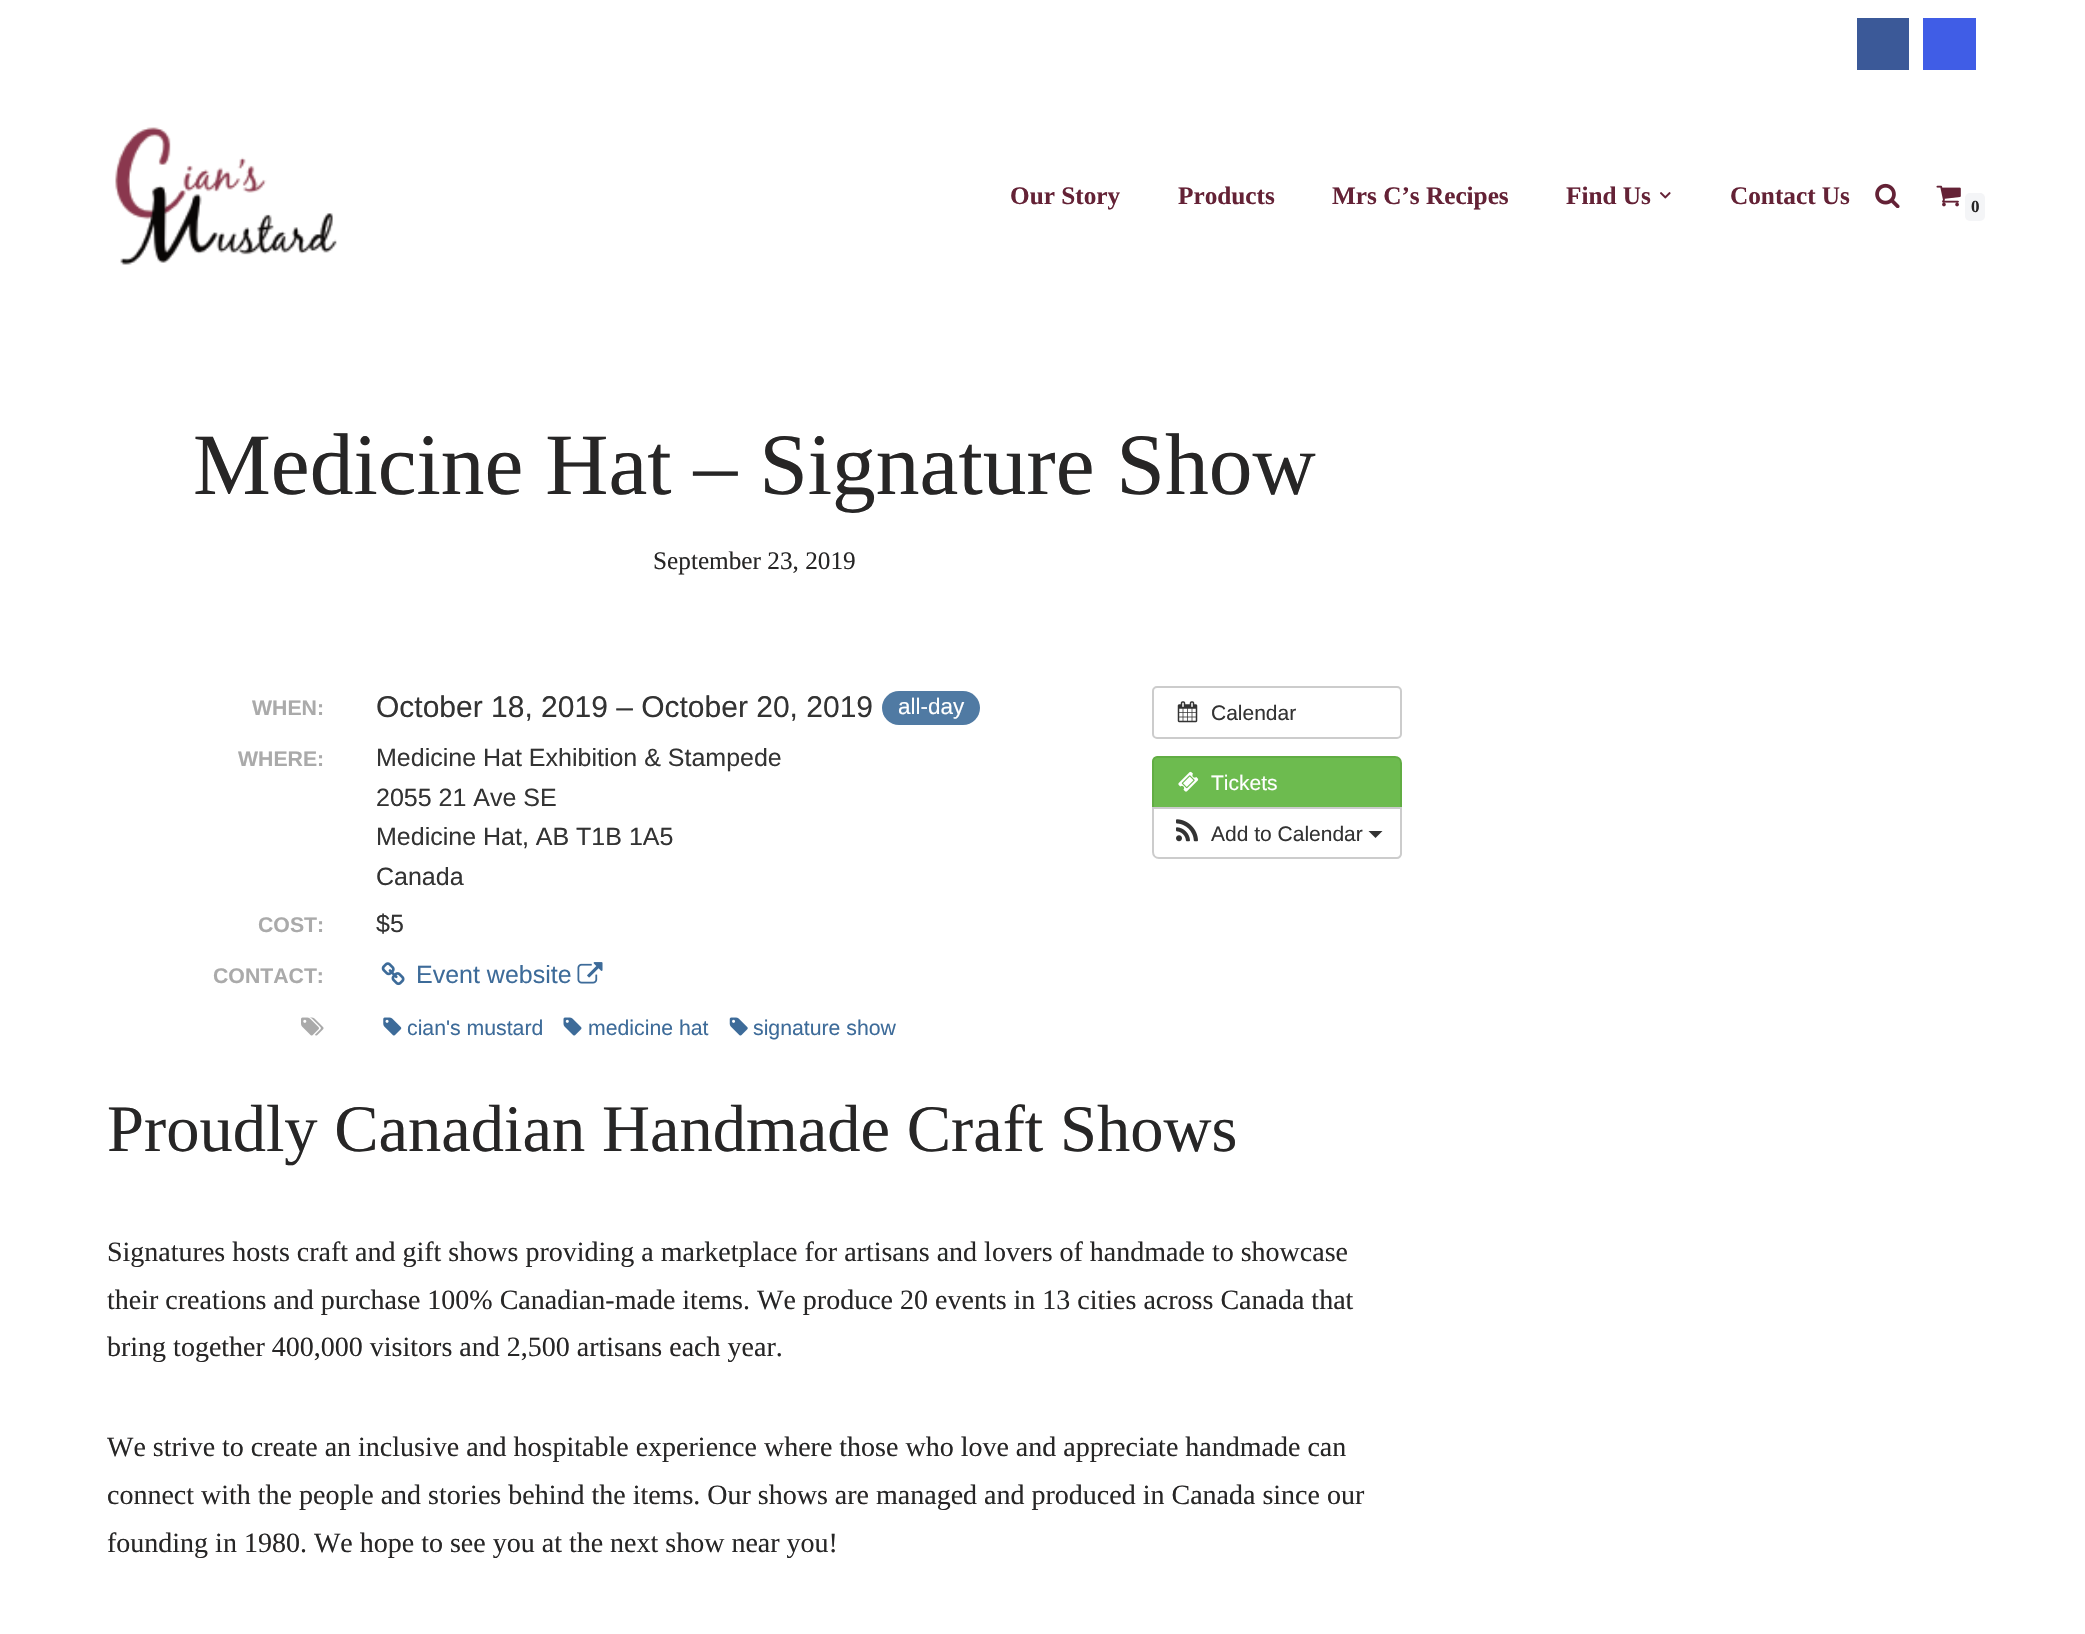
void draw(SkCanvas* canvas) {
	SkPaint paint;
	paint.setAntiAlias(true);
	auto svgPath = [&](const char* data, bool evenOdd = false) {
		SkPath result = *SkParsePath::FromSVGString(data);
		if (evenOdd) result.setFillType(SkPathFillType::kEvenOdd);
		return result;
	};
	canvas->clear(0xffffffff);
	paint.setColor(0xff3b5998);
	canvas->drawRect(SkRect::MakeXYWH(1857, 18, 52, 52), paint);
	paint.setColor(0xff405de6);
	canvas->drawRect(SkRect::MakeXYWH(1923, 18, 53, 52), paint);
	canvas->drawImageRect(SkImages::DeferredFromEncodedData(SkData::MakeFromFileName("img1.png")), SkRect::MakeXYWH(115, 127, 222, 138), SkSamplingOptions());
	SkFont f1(fontMgr->matchFamilyStyle("Liberation Serif", SkFontStyle::Bold()), 25.25);
	f1.setSubpixel(true);
	paint.setColor(0xff642236);
	canvas->drawString("Our Story", 1010, 204, f1, paint);
	canvas->drawString("Products", 1178, 204, f1, paint);
	canvas->drawString("Mrs C’s Recipes", 1332, 204, f1, paint);
	canvas->drawString("Find Us", 1566, 204, f1, paint);
	canvas->drawImageRect(SkImages::DeferredFromEncodedData(SkData::MakeFromFileName("img2.png")), SkRect::MakeXYWH(1660, 192, 11, 7), SkSamplingOptions());
	canvas->drawString("Contact Us", 1730, 204, f1, paint);
	canvas->drawImageRect(SkImages::DeferredFromEncodedData(SkData::MakeFromFileName("img3.png")), SkRect::MakeXYWH(1875, 183, 25, 25), SkSamplingOptions());
	canvas->drawImageRect(SkImages::DeferredFromEncodedData(SkData::MakeFromFileName("img4.png")), SkRect::MakeXYWH(1936, 185, 25, 22), SkSamplingOptions());
	paint.setColor(0xfff4f5f7);
	canvas->drawRoundRect(SkRect::MakeXYWH(1965, 193, 20, 28), 5, 5, paint);
	SkFont f2(fontMgr->matchFamilyStyle("Liberation Serif", SkFontStyle::Bold()), 17);
	f2.setSubpixel(true);
	paint.setColor(0xff272626);
	canvas->drawString("0", 1971, 212, f2, paint);
	SkFont f3(fontMgr->matchFamilyStyle("Liberation Serif", SkFontStyle::Normal()), 87.5);
	f3.setSubpixel(true);
	canvas->drawString("Medicine Hat – Signature Show", 193, 494, f3, paint);
	SkFont f4(fontMgr->matchFamilyStyle("Liberation Serif", SkFontStyle::Normal()), 25.25);
	f4.setSubpixel(true);
	canvas->drawString("September 23, 2019", 653, 569, f4, paint);
	SkFont f5(fontMgr->matchFamilyStyle("Liberation Sans", SkFontStyle::Bold()), 21.25);
	f5.setSubpixel(true);
	paint.setColor(0xffaaaaaa);
	canvas->drawString("WHEN:", 252, 715, f5, paint);
	SkFont f6(fontMgr->matchFamilyStyle("Liberation Sans", SkFontStyle::Normal()), 30);
	f6.setSubpixel(true);
	paint.setColor(0xff333333);
	canvas->drawString("October 18, 2019 – October 20, 2019", 376, 717, f6, paint);
	paint.setColor(0xff507aa3);
	canvas->drawRoundRect(SkRect::MakeXYWH(882, 691, 98, 34), 17, 17, paint);
	SkFont f7(fontMgr->matchFamilyStyle("Liberation Sans", SkFontStyle::Normal()), 22.5);
	f7.setSubpixel(true);
	paint.setColor(0xffffffff);
	canvas->drawString("all-day", 898, 714, f7, paint);
	paint.setColor(0xffaaaaaa);
	canvas->drawString("WHERE:", 238, 766, f5, paint);
	SkFont f8(fontMgr->matchFamilyStyle("Liberation Sans", SkFontStyle::Normal()), 25);
	f8.setSubpixel(true);
	paint.setColor(0xff333333);
	canvas->drawString("Medicine Hat Exhibition & Stampede", 376, 766, f8, paint);
	canvas->drawString("2055 21 Ave SE", 376, 806, f8, paint);
	canvas->drawString("Medicine Hat, AB T1B 1A5", 376, 845, f8, paint);
	canvas->drawString("Canada", 376, 885, f8, paint);
	paint.setColor(0xffaaaaaa);
	canvas->drawString("COST:", 258, 932, f5, paint);
	paint.setColor(0xff333333);
	canvas->drawString("$5", 376, 932, f8, paint);
	paint.setColor(0xffaaaaaa);
	canvas->drawString("CONTACT:", 213, 983, f5, paint);
	canvas->drawImageRect(SkImages::DeferredFromEncodedData(SkData::MakeFromFileName("img5.png")), SkRect::MakeXYWH(381, 962, 24, 24), SkSamplingOptions());
	paint.setColor(0xff3d6b99);
	canvas->drawString("Event website", 416, 983, f8, paint);
	canvas->drawImageRect(SkImages::DeferredFromEncodedData(SkData::MakeFromFileName("img6.png")), SkRect::MakeXYWH(577, 962, 26, 22), SkSamplingOptions());
	canvas->drawImageRect(SkImages::DeferredFromEncodedData(SkData::MakeFromFileName("img7.png")), SkRect::MakeXYWH(301, 1017, 23, 19), SkSamplingOptions());
	canvas->drawImageRect(SkImages::DeferredFromEncodedData(SkData::MakeFromFileName("img8.png")), SkRect::MakeXYWH(383, 1017, 19, 19), SkSamplingOptions());
	SkFont f9(fontMgr->matchFamilyStyle("Liberation Sans", SkFontStyle::Normal()), 21.25);
	f9.setSubpixel(true);
	canvas->drawString("cian's mustard", 407, 1035, f9, paint);
	canvas->drawImageRect(SkImages::DeferredFromEncodedData(SkData::MakeFromFileName("img9.png")), SkRect::MakeXYWH(563, 1017, 19, 19), SkSamplingOptions());
	canvas->drawString("medicine hat", 588, 1035, f9, paint);
	canvas->drawImageRect(SkImages::DeferredFromEncodedData(SkData::MakeFromFileName("img10.png")), SkRect::MakeXYWH(729, 1017, 19, 19), SkSamplingOptions());
	canvas->drawString("signature show", 753, 1035, f9, paint);
	paint.setStroke(true);
	paint.setStrokeWidth(2);
	paint.setColor(0xffcccccc);
	canvas->drawRoundRect(SkRect::MakeXYWH(1153, 687, 248, 51), 4, 4, paint);
	canvas->drawImageRect(SkImages::DeferredFromEncodedData(SkData::MakeFromFileName("img11.png")), SkRect::MakeXYWH(1177, 701, 21, 22), SkSamplingOptions());
	SkFont f10(fontMgr->matchFamilyStyle("Liberation Sans", SkFontStyle::Normal()), 21);
	f10.setSubpixel(true);
	paint.setStroke(false);
	paint.setColor(0xff333333);
	canvas->drawString("Calendar", 1211, 720, f10, paint);
	paint.setColor(0xff6dbb4f);
	canvas->drawPath(svgPath("M1157 757H1395C1398.5 757 1401 759.5 1401 763V808H1153V761C1153 759 1155 757 1157 757Z"), paint);
	paint.setStroke(true);
	paint.setColor(0xff61ad43);
	canvas->drawPath(svgPath("M1157 757H1395C1398.5 757 1401 759.5 1401 763V808H1153V761C1153 759 1155 757 1157 757Z"), paint);
	canvas->drawImageRect(SkImages::DeferredFromEncodedData(SkData::MakeFromFileName("img12.png")), SkRect::MakeXYWH(1178, 771, 21, 21), SkSamplingOptions());
	paint.setStroke(false);
	paint.setColor(0xffffffff);
	canvas->drawString("Tickets", 1211, 790, f10, paint);
	canvas->drawPath(svgPath("M1153 808H1401V854C1401 856 1399 858 1397 858H1159C1155.5 858 1153 855.5 1153 852Z"), paint);
	paint.setStroke(true);
	paint.setColor(0xffcccccc);
	canvas->drawPath(svgPath("M1153 808H1401V854C1401 856 1399 858 1397 858H1159C1155.5 858 1153 855.5 1153 852Z"), paint);
	canvas->drawImageRect(SkImages::DeferredFromEncodedData(SkData::MakeFromFileName("img13.png")), SkRect::MakeXYWH(1176, 819, 22, 23), SkSamplingOptions());
	paint.setStroke(false);
	paint.setColor(0xff333333);
	canvas->drawString("Add to Calendar", 1211, 841, f10, paint);
	canvas->drawPath(svgPath("M1368.5 831H1382.5L1375.5 838Z"), paint);
	SkFont f11(fontMgr->matchFamilyStyle("Liberation Serif", SkFontStyle::Normal()), 66.5);
	f11.setSubpixel(true);
	paint.setColor(0xff272626);
	canvas->drawString("Proudly Canadian Handmade Craft Shows", 107, 1151, f11, paint);
	SkFont f12(fontMgr->matchFamilyStyle("Liberation Serif", SkFontStyle::Normal()), 28);
	f12.setSubpixel(true);
	canvas->drawString("Signatures hosts craft and gift shows providing a marketplace for artisans and lovers of handmade to showcase", 107, 1261, f12, paint);
	canvas->drawString("their creations and purchase 100% Canadian-made items. We produce 20 events in 13 cities across Canada that", 107, 1309, f12, paint);
	canvas->drawString("bring together 400,000 visitors and 2,500 artisans each year.", 107, 1356, f12, paint);
	canvas->drawString("We strive to create an inclusive and hospitable experience where those who love and appreciate handmade can", 107, 1456, f12, paint);
	canvas->drawString("connect with the people and stories behind the items. Our shows are managed and produced in Canada since our", 107, 1504, f12, paint);
	canvas->drawString("founding in 1980. We hope to see you at the next show near you!", 107, 1552, f12, paint);
}
